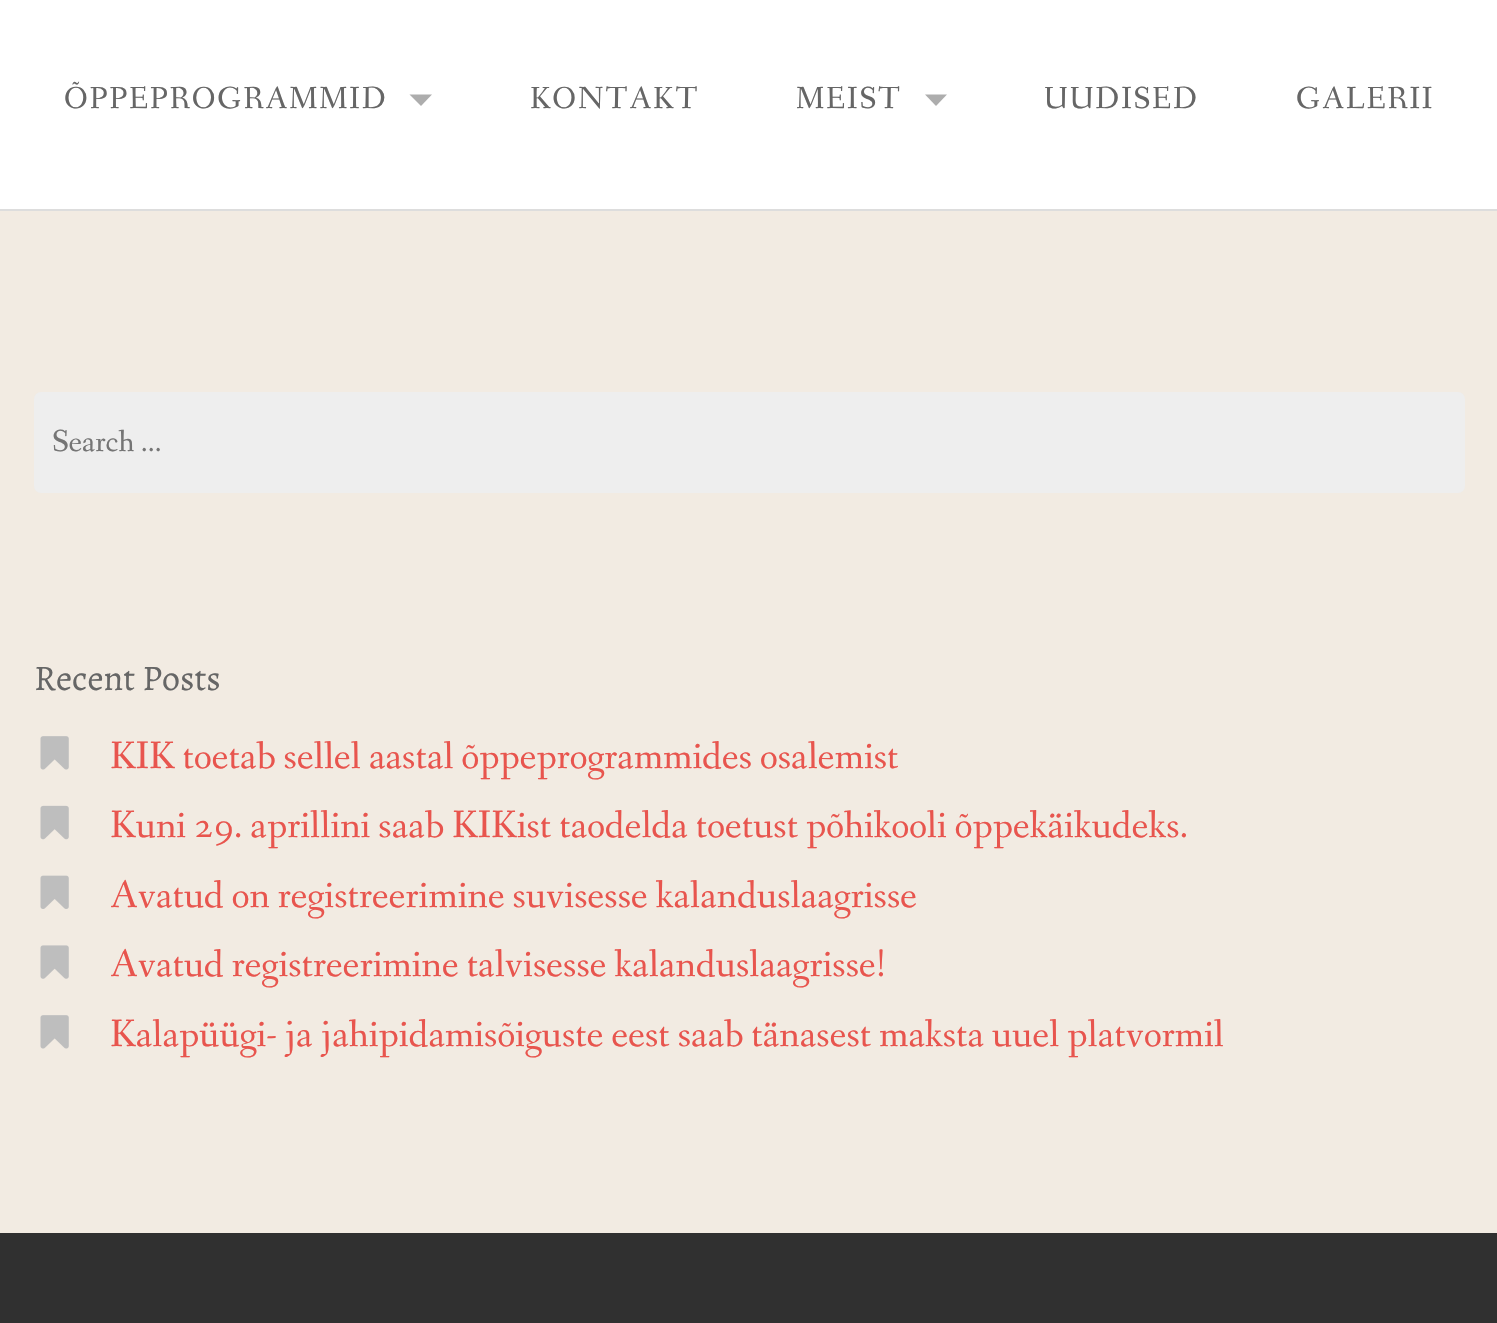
void draw(SkCanvas* canvas) {
	SkPaint paint;
	paint.setAntiAlias(true);
	auto spacedText = [&](const char* s, float x, float y, const SkFont& font, const SkPaint& ink, float letter, float word) {
		std::vector<SkGlyphID> glyphs(font.countText(s, strlen(s), SkTextEncoding::kUTF8));
		std::vector<float> xs(glyphs.size());
		font.textToGlyphs(s, strlen(s), SkTextEncoding::kUTF8, glyphs);
		font.getXPos(glyphs, xs, x);
		float extra = 0;
		for (size_t i = 0; i < glyphs.size(); i++) {
			xs[i] += extra;
			extra += letter + word * (glyphs[i] == font.unicharToGlyph(' '));
		}
		canvas->drawTextBlob(SkTextBlob::MakeFromPosHGlyphs(glyphs, xs, y, font), 0, 0, ink);
	};
	auto svgPath = [&](const char* data, bool evenOdd = false) {
		SkPath result = *SkParsePath::FromSVGString(data);
		if (evenOdd) result.setFillType(SkPathFillType::kEvenOdd);
		return result;
	};
	canvas->clear(0xfff2ebe2);
	paint.setColor(0xffffffff);
	canvas->drawRect(SkRect::MakeXYWH(0, 0, 1497, 209), paint);
	SkFont f1(fontMgr->matchFamilyStyle("Fanwood Text", SkFontStyle::Normal()), 31.5);
	f1.setSubpixel(true);
	paint.setColor(0xff666666);
	spacedText("ÕPPEPROGRAMMID", 64, 108, f1, paint, 1.9, 0);
	paint.setColor(0xffadadad);
	canvas->drawPath(svgPath("M409.5 94.5H432L421 106Z"), paint);
	paint.setColor(0xff666666);
	spacedText("KONTAKT", 530, 108, f1, paint, 1.9, 0);
	spacedText("MEIST", 796, 108, f1, paint, 1.9, 0);
	paint.setColor(0xffadadad);
	canvas->drawPath(svgPath("M925 94.5H947L936 106Z"), paint);
	paint.setColor(0xff666666);
	spacedText("UUDISED", 1044, 108, f1, paint, 1.9, 0);
	spacedText("GALERII", 1296, 108, f1, paint, 1.9, 0);
	paint.setColor(0xffdddddd);
	canvas->drawRect(SkRect::MakeXYWH(0, 209, 1497, 2), paint);
	paint.setColor(0xffeeeeee);
	canvas->drawRoundRect(SkRect::MakeXYWH(34, 392, 1431, 101), 7, 7, paint);
	paint.setColor(0xff757575);
	canvas->drawString("Search …", 52, 451, f1, paint);
	SkFont f2(fontMgr->matchFamilyStyle("Alegreya", SkFontStyle::Normal()), 36);
	f2.setSubpixel(true);
	paint.setColor(0xff666666);
	canvas->drawString("Recent Posts", 34, 690, f2, paint);
	canvas->drawImageRect(SkImages::DeferredFromEncodedData(SkData::MakeFromFileName("img1.png")), SkRect::MakeXYWH(40, 736, 29, 34), SkSamplingOptions());
	SkFont f3(fontMgr->matchFamilyStyle("Fanwood Text", SkFontStyle::Normal()), 39.6);
	f3.setSubpixel(true);
	paint.setColor(0xffe8554e);
	canvas->drawString("KIK toetab sellel aastal õppeprogrammides osalemist", 110, 768, f3, paint);
	canvas->drawImageRect(SkImages::DeferredFromEncodedData(SkData::MakeFromFileName("img2.png")), SkRect::MakeXYWH(40, 805, 29, 35), SkSamplingOptions());
	canvas->drawString("Kuni 29. aprillini saab KIKist taodelda toetust põhikooli õppekäikudeks.", 110, 837, f3, paint);
	canvas->drawImageRect(SkImages::DeferredFromEncodedData(SkData::MakeFromFileName("img3.png")), SkRect::MakeXYWH(40, 875, 29, 34), SkSamplingOptions());
	canvas->drawString("Avatud on registreerimine suvisesse kalanduslaagrisse", 110, 907, f3, paint);
	canvas->drawImageRect(SkImages::DeferredFromEncodedData(SkData::MakeFromFileName("img4.png")), SkRect::MakeXYWH(40, 945, 29, 34), SkSamplingOptions());
	canvas->drawString("Avatud registreerimine talvisesse kalanduslaagrisse!", 110, 976, f3, paint);
	canvas->drawImageRect(SkImages::DeferredFromEncodedData(SkData::MakeFromFileName("img1.png")), SkRect::MakeXYWH(40, 1015, 29, 34), SkSamplingOptions());
	canvas->drawString("Kalapüügi- ja jahipidamisõiguste eest saab tänasest maksta uuel platvormil", 110, 1046, f3, paint);
	paint.setColor(0xff303030);
	canvas->drawRect(SkRect::MakeXYWH(0, 1233, 1497, 90), paint);
}
